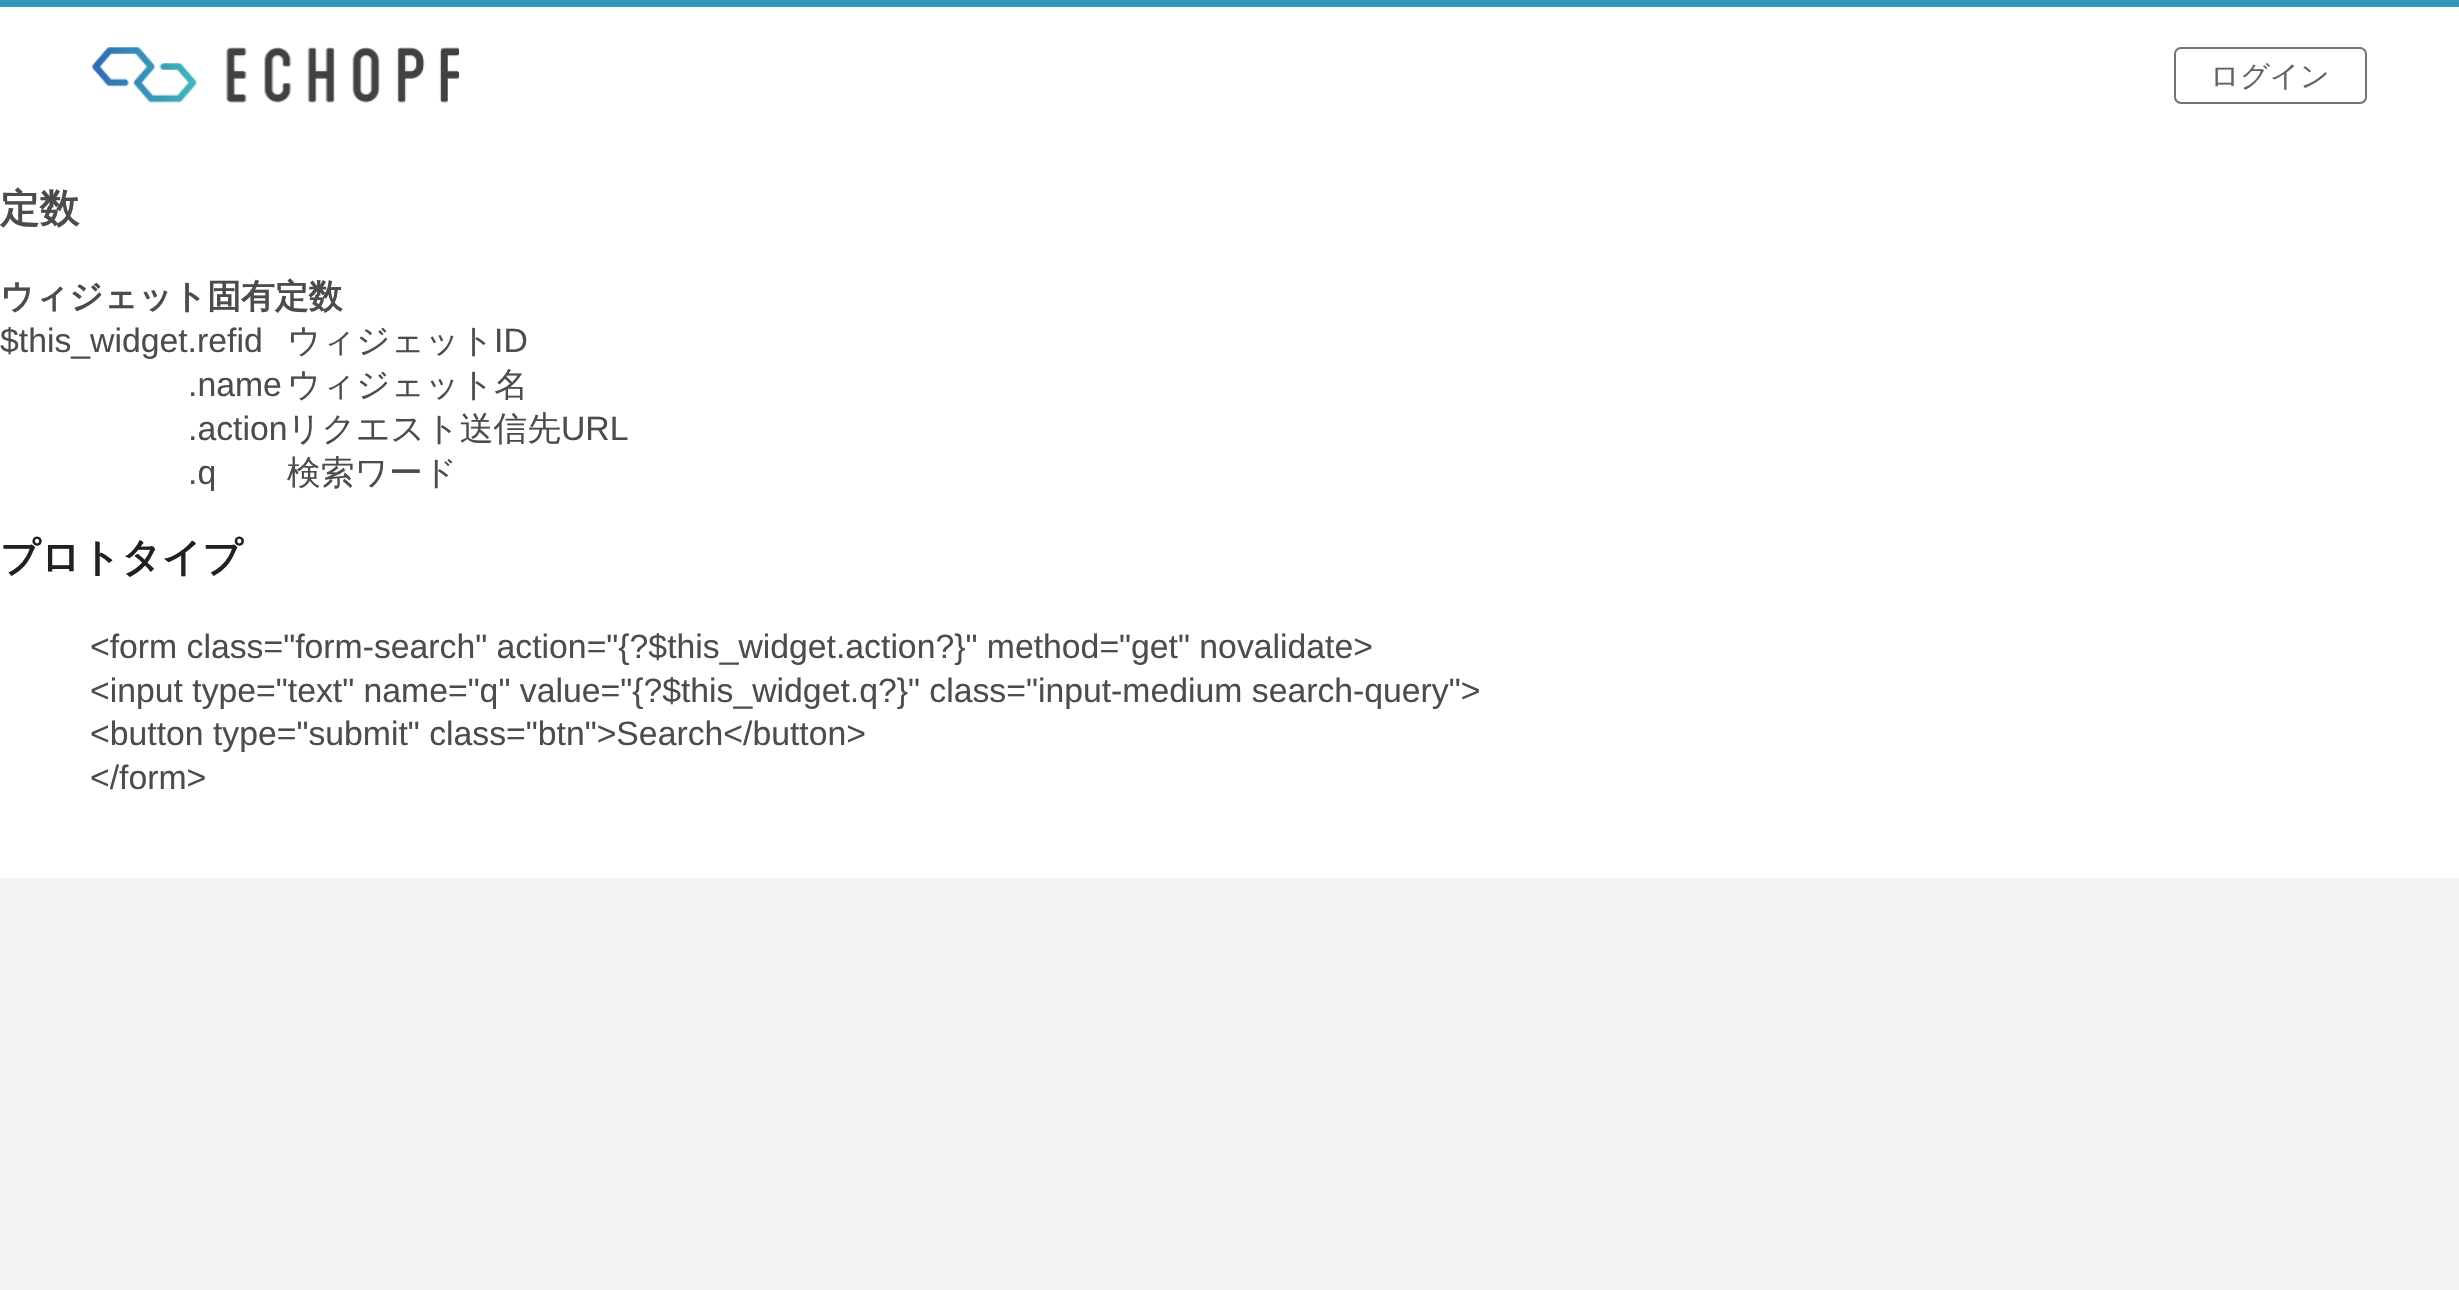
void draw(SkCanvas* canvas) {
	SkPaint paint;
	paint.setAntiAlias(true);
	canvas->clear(0xfff3f3f3);
	paint.setColor(0xffffffff);
	canvas->drawRect(SkRect::MakeXYWH(0, 7, 2459, 871), paint);
	paint.setColor(0xff3299ba);
	canvas->drawRect(SkRect::MakeXYWH(0, 0, 2459, 7), paint);
	canvas->drawImageRect(SkImages::DeferredFromEncodedData(SkData::MakeFromFileName("img1.png")), SkRect::MakeXYWH(92, 47, 368, 56), SkSamplingOptions());
	paint.setStroke(true);
	paint.setStrokeWidth(2);
	paint.setColor(0xff737373);
	canvas->drawRoundRect(SkRect::MakeXYWH(2175, 48, 191, 55), 6, 6, paint);
	SkFont f1(fontMgr->matchFamilyStyle("WenQuanYi Zen Hei", SkFontStyle(500, SkFontStyle::kNormal_Width, SkFontStyle::kUpright_Slant)), 29.25);
	f1.setSubpixel(true);
	paint.setStroke(false);
	paint.setColor(0xff626262);
	canvas->drawString("ログイン", 2210, 86, f1, paint);
	SkFont f2(fontMgr->matchFamilyStyle("WenQuanYi Zen Hei", SkFontStyle::Bold()), 39.5);
	f2.setSubpixel(true);
	paint.setColor(0xff4c4c4c);
	canvas->drawString("定数", 0, 222, f2, paint);
	SkFont f3(fontMgr->matchFamilyStyle("WenQuanYi Zen Hei", SkFontStyle::Bold()), 33.75);
	f3.setSubpixel(true);
	canvas->drawString("ウィジェット固有定数", 0, 308, f3, paint);
	SkFont f4(fontMgr->matchFamilyStyle("Liberation Sans", SkFontStyle::Normal()), 33.75);
	f4.setSubpixel(true);
	canvas->drawString("$this_widget.refid", 0, 352, f4, paint);
	SkFont f5(fontMgr->matchFamilyStyle("WenQuanYi Zen Hei", SkFontStyle(500, SkFontStyle::kNormal_Width, SkFontStyle::kUpright_Slant)), 33.75);
	f5.setSubpixel(true);
	canvas->drawString("ウィジェット", 287, 352, f5, paint);
	canvas->drawString("ID", 494, 352, f4, paint);
	canvas->drawString(".name", 188, 396, f4, paint);
	canvas->drawString("ウィジェット名", 287, 396, f5, paint);
	canvas->drawString(".action", 188, 440, f4, paint);
	canvas->drawString("リクエスト送信先", 287, 440, f5, paint);
	canvas->drawString("URL", 561, 440, f4, paint);
	canvas->drawString(".q", 188, 484, f4, paint);
	canvas->drawString("検索ワード", 287, 484, f5, paint);
	paint.setColor(0xff212121);
	canvas->drawString("プロトタイプ", 0, 571, f2, paint);
	paint.setColor(0xff4c4c4c);
	canvas->drawString("<form class=\"form-search\" action=\"{?$this_widget.action?}\" method=\"get\" novalidate>", 90, 658, f4, paint);
	canvas->drawString("<input type=\"text\" name=\"q\" value=\"{?$this_widget.q?}\" class=\"input-medium search-query\">", 90, 702, f4, paint);
	canvas->drawString("<button type=\"submit\" class=\"btn\">Search</button>", 90, 745, f4, paint);
	canvas->drawString("</form>", 90, 789, f4, paint);
}
